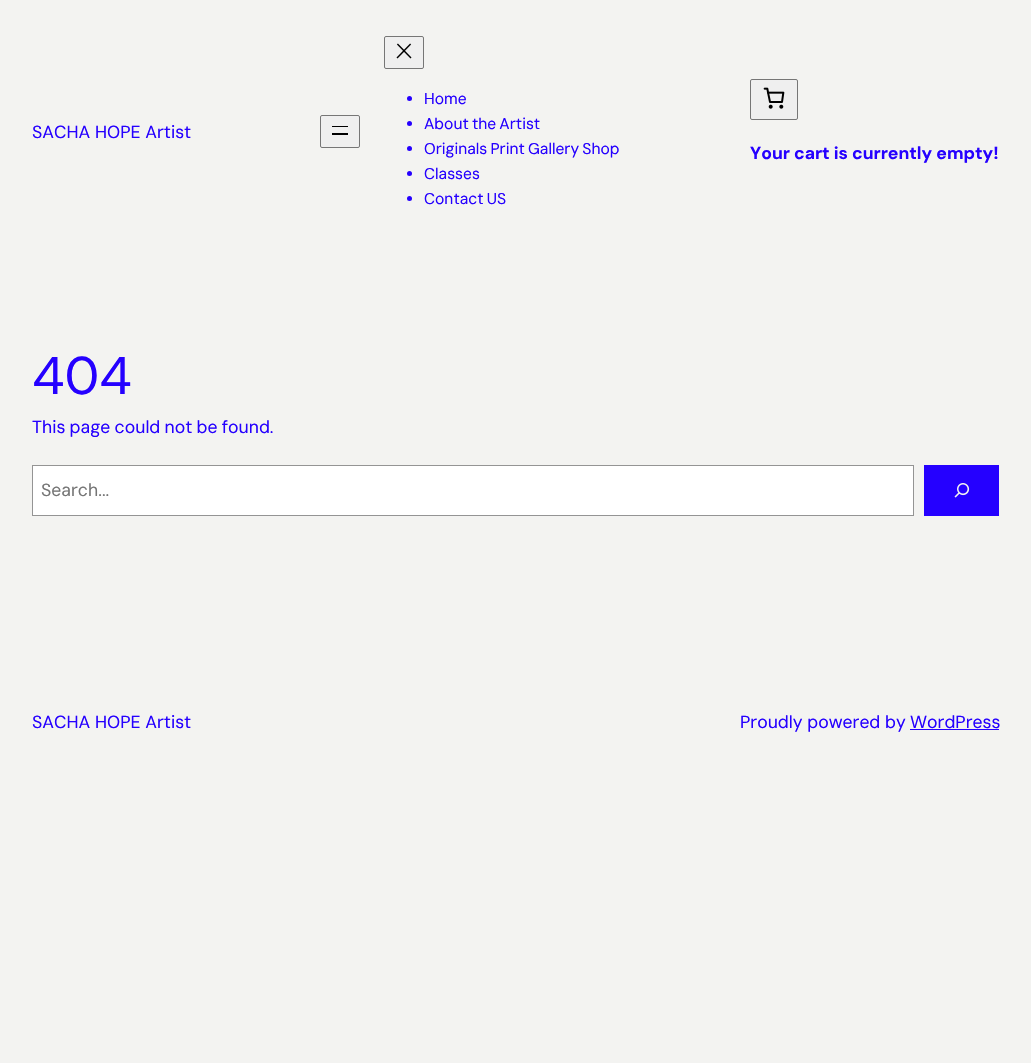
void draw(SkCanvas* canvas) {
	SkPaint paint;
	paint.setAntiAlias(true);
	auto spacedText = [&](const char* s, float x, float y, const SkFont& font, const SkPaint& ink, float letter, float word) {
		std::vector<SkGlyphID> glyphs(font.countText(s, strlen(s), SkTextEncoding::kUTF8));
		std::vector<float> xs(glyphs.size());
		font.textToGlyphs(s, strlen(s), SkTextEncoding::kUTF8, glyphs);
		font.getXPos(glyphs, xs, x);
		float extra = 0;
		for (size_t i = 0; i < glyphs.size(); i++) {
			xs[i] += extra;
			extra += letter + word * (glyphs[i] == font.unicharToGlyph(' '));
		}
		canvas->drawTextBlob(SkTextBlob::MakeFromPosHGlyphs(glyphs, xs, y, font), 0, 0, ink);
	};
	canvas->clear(0xfff3f3f1);
	SkFont f1(fontMgr->matchFamilyStyle("DM Sans", SkFontStyle::Normal()), 17.6);
	f1.setSubpixel(true);
	paint.setColor(0xff2500ff);
	canvas->drawString("SACHA HOPE Artist", 32, 138, f1, paint);
	paint.setColor(0xffefefef);
	canvas->drawRoundRect(SkRect::MakeXYWH(320.5, 115.5, 39, 32), 1.5, 1.5, paint);
	paint.setStroke(true);
	paint.setStrokeWidth(1);
	paint.setColor(0xff767676);
	canvas->drawRoundRect(SkRect::MakeXYWH(320.5, 115.5, 39, 32), 1.5, 1.5, paint);
	paint.setStroke(false);
	paint.setColor(0xff000000);
	canvas->drawRect(SkRect::MakeXYWH(332, 126, 16, 1), paint);
	canvas->drawRect(SkRect::MakeXYWH(332, 133, 16, 2), paint);
	paint.setColor(0xffefefef);
	canvas->drawRoundRect(SkRect::MakeXYWH(384.5, 36.5, 39, 32), 1.5, 1.5, paint);
	paint.setStroke(true);
	paint.setColor(0xff767676);
	canvas->drawRoundRect(SkRect::MakeXYWH(384.5, 36.5, 39, 32), 1.5, 1.5, paint);
	canvas->drawImageRect(SkImages::DeferredFromEncodedData(SkData::MakeFromFileName("img1.png")), SkRect::MakeXYWH(396, 43, 16, 16), SkSamplingOptions());
	paint.setStroke(false);
	paint.setColor(0xff2500ff);
	canvas->drawCircle(409.5, 98.5, 2.5, paint);
	SkFont f2(fontMgr->matchFamilyStyle("DM Sans", SkFontStyle::Normal()), 15.6);
	f2.setSubpixel(true);
	canvas->drawString("Home", 424, 104, f2, paint);
	canvas->drawCircle(409.5, 123.5, 2.5, paint);
	spacedText("About the Artist", 424, 129, f2, paint, 0, -1);
	canvas->drawCircle(409.5, 148.5, 2.5, paint);
	spacedText("Originals Print Gallery Shop", 424, 154, f2, paint, 0, -1);
	canvas->drawCircle(409.5, 173.5, 2.5, paint);
	canvas->drawString("Classes", 424, 179, f2, paint);
	canvas->drawCircle(409.5, 198.5, 2.5, paint);
	spacedText("Contact US", 424, 204, f2, paint, 0, -1);
	paint.setColor(0xffefefef);
	canvas->drawRoundRect(SkRect::MakeXYWH(750.5, 79.5, 47, 40), 1.5, 1.5, paint);
	paint.setStroke(true);
	paint.setColor(0xff767676);
	canvas->drawRoundRect(SkRect::MakeXYWH(750.5, 79.5, 47, 40), 1.5, 1.5, paint);
	canvas->drawImageRect(SkImages::DeferredFromEncodedData(SkData::MakeFromFileName("img2.png")), SkRect::MakeXYWH(763, 87, 22, 22), SkSamplingOptions());
	SkFont f3(fontMgr->matchFamilyStyle("DM Sans", SkFontStyle::Bold()), 17.6);
	f3.setSubpixel(true);
	paint.setStroke(false);
	paint.setColor(0xff2500ff);
	canvas->drawString("Your cart is currently empty!", 750, 159, f3, paint);
	SkFont f4(fontMgr->matchFamilyStyle("DM Sans", SkFontStyle::Normal()), 53);
	f4.setSubpixel(true);
	canvas->drawString("404", 32, 394, f4, paint);
	spacedText("This page could not be found.", 32, 433, f1, paint, 0, -0.5);
	paint.setColor(0xffffffff);
	canvas->drawRect(SkRect::MakeXYWH(32.5, 465.5, 881, 50), paint);
	paint.setStroke(true);
	paint.setColor(0xff949494);
	canvas->drawRect(SkRect::MakeXYWH(32.5, 465.5, 881, 50), paint);
	paint.setStroke(false);
	paint.setColor(0xff757575);
	canvas->drawString("Search...", 41, 496, f1, paint);
	paint.setColor(0xff2500ff);
	canvas->drawRect(SkRect::MakeXYWH(924, 465, 75, 51), paint);
	canvas->drawImageRect(SkImages::DeferredFromEncodedData(SkData::MakeFromFileName("img3.png")), SkRect::MakeXYWH(954, 483, 16, 15), SkSamplingOptions());
	canvas->drawString("SACHA HOPE Artist", 32, 728, f1, paint);
	canvas->drawString("Proudly powered by", 740, 728, f1, paint);
	canvas->drawString("WordPress", 910, 728, f1, paint);
	canvas->drawRect(SkRect::MakeXYWH(910, 729, 89, 1), paint);
}
